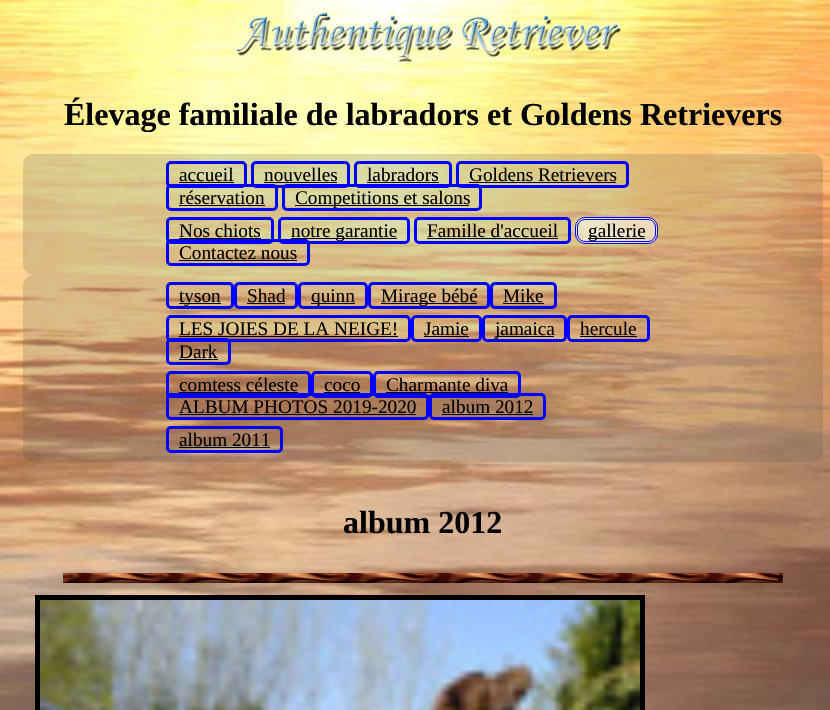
void draw(SkCanvas* canvas) {
	SkPaint paint;
	paint.setAntiAlias(true);
	canvas->clear(0xffffffff);
	canvas->drawImageRect(SkImages::DeferredFromEncodedData(SkData::MakeFromFileName("img1.png")), SkRect::MakeXYWH(0, 0, 830, 710), SkSamplingOptions());
	canvas->drawImageRect(SkImages::DeferredFromEncodedData(SkData::MakeFromFileName("img2.png")), SkRect::MakeXYWH(234, 9, 387, 53), SkSamplingOptions());
	SkFont f1(fontMgr->matchFamilyStyle("Liberation Serif", SkFontStyle::Bold()), 32);
	f1.setSubpixel(true);
	paint.setColor(0xff000000);
	canvas->drawString("Élevage familiale de labradors et Goldens Retrievers", 64, 125, f1, paint);
	paint.setColor(0x33494e56);
	canvas->drawRoundRect(SkRect::MakeXYWH(23, 154, 800, 121), 10, 10, paint);
	paint.setStroke(true);
	paint.setStrokeWidth(3);
	paint.setColor(0xff0000ff);
	canvas->drawRoundRect(SkRect::MakeXYWH(167.5, 162.5, 78, 24), 3.5, 3.5, paint);
	SkFont f2(fontMgr->matchFamilyStyle("Liberation Serif", SkFontStyle::Normal()), 19.25);
	f2.setSubpixel(true);
	paint.setStroke(false);
	paint.setColor(0xff000000);
	canvas->drawString("accueil", 179, 181, f2, paint);
	canvas->drawRect(SkRect::MakeXYWH(179, 182, 55, 1), paint);
	paint.setStroke(true);
	paint.setColor(0xff0000ff);
	canvas->drawRoundRect(SkRect::MakeXYWH(252.5, 162.5, 96, 24), 3.5, 3.5, paint);
	paint.setStroke(false);
	paint.setColor(0xff000000);
	canvas->drawString("nouvelles", 264, 181, f2, paint);
	canvas->drawRect(SkRect::MakeXYWH(264, 182, 73, 1), paint);
	paint.setStroke(true);
	paint.setColor(0xff0000ff);
	canvas->drawRoundRect(SkRect::MakeXYWH(355.5, 162.5, 95, 24), 3.5, 3.5, paint);
	paint.setStroke(false);
	paint.setColor(0xff000000);
	canvas->drawString("labradors", 367, 181, f2, paint);
	canvas->drawRect(SkRect::MakeXYWH(367, 182, 72, 1), paint);
	paint.setStroke(true);
	paint.setColor(0xff0000ff);
	canvas->drawRoundRect(SkRect::MakeXYWH(457.5, 162.5, 170, 24), 3.5, 3.5, paint);
	paint.setStroke(false);
	paint.setColor(0xff000000);
	canvas->drawString("Goldens Retrievers", 469, 181, f2, paint);
	canvas->drawRect(SkRect::MakeXYWH(469, 182, 147, 1), paint);
	paint.setStroke(true);
	paint.setColor(0xff0000ff);
	canvas->drawRoundRect(SkRect::MakeXYWH(167.5, 185.5, 109, 24), 3.5, 3.5, paint);
	paint.setStroke(false);
	paint.setColor(0xff000000);
	canvas->drawString("réservation", 179, 204, f2, paint);
	canvas->drawRect(SkRect::MakeXYWH(179, 205, 86, 1), paint);
	paint.setStroke(true);
	paint.setColor(0xff0000ff);
	canvas->drawRoundRect(SkRect::MakeXYWH(283.5, 185.5, 197, 24), 3.5, 3.5, paint);
	paint.setStroke(false);
	paint.setColor(0xff000000);
	canvas->drawRect(SkRect::MakeXYWH(295, 205, 174, 1), paint);
	canvas->drawString("Competitions et salons", 295, 204, f2, paint);
	paint.setStroke(true);
	paint.setColor(0xff0000ff);
	canvas->drawRoundRect(SkRect::MakeXYWH(167.5, 218.5, 105, 24), 3.5, 3.5, paint);
	paint.setStroke(false);
	paint.setColor(0xff000000);
	canvas->drawString("Nos chiots", 179, 237, f2, paint);
	canvas->drawRect(SkRect::MakeXYWH(179, 238, 82, 1), paint);
	paint.setStroke(true);
	paint.setColor(0xff0000ff);
	canvas->drawRoundRect(SkRect::MakeXYWH(279.5, 218.5, 129, 24), 3.5, 3.5, paint);
	paint.setStroke(false);
	paint.setColor(0xff000000);
	canvas->drawRect(SkRect::MakeXYWH(291, 238, 106, 1), paint);
	canvas->drawString("notre garantie", 291, 237, f2, paint);
	paint.setStroke(true);
	paint.setColor(0xff0000ff);
	canvas->drawRoundRect(SkRect::MakeXYWH(415.5, 218.5, 154, 24), 3.5, 3.5, paint);
	paint.setStroke(false);
	paint.setColor(0xff000000);
	canvas->drawString("Famille d'accueil", 427, 237, f2, paint);
	canvas->drawRect(SkRect::MakeXYWH(427, 238, 131, 1), paint);
	paint.setColor(0x80ffffff);
	canvas->drawRoundRect(SkRect::MakeXYWH(575.5, 217.5, 82, 26), 9.5, 9.5, paint);
	paint.setStroke(true);
	paint.setStrokeWidth(1);
	paint.setColor(0xff0000ff);
	canvas->drawRoundRect(SkRect::MakeXYWH(575.5, 217.5, 82, 26), 9.5, 9.5, paint);
	canvas->drawRoundRect(SkRect::MakeXYWH(577.5, 219.5, 78, 22), 7.5, 7.5, paint);
	paint.setStroke(false);
	paint.setColor(0xff000000);
	canvas->drawRect(SkRect::MakeXYWH(588, 238, 57, 1), paint);
	canvas->drawString("gallerie", 588, 237, f2, paint);
	paint.setStroke(true);
	paint.setStrokeWidth(3);
	paint.setColor(0xff0000ff);
	canvas->drawRoundRect(SkRect::MakeXYWH(167.5, 240.5, 141, 24), 3.5, 3.5, paint);
	paint.setStroke(false);
	paint.setColor(0xff000000);
	canvas->drawString("Contactez nous", 179, 259, f2, paint);
	canvas->drawRect(SkRect::MakeXYWH(179, 260, 118, 1), paint);
	paint.setColor(0x33494e56);
	canvas->drawRoundRect(SkRect::MakeXYWH(23, 275, 800, 187), 10, 10, paint);
	paint.setStroke(true);
	paint.setColor(0xff0000ff);
	canvas->drawRoundRect(SkRect::MakeXYWH(167.5, 283.5, 65, 24), 3.5, 3.5, paint);
	paint.setStroke(false);
	paint.setColor(0xff000000);
	canvas->drawRect(SkRect::MakeXYWH(179, 303, 42, 1), paint);
	canvas->drawString("tyson", 179, 302, f2, paint);
	paint.setStroke(true);
	paint.setColor(0xff0000ff);
	canvas->drawRoundRect(SkRect::MakeXYWH(235.5, 283.5, 61, 24), 3.5, 3.5, paint);
	paint.setStroke(false);
	paint.setColor(0xff000000);
	canvas->drawString("Shad", 247, 302, f2, paint);
	canvas->drawRect(SkRect::MakeXYWH(247, 303, 38, 1), paint);
	paint.setStroke(true);
	paint.setColor(0xff0000ff);
	canvas->drawRoundRect(SkRect::MakeXYWH(299.5, 283.5, 67, 24), 3.5, 3.5, paint);
	paint.setStroke(false);
	paint.setColor(0xff000000);
	canvas->drawRect(SkRect::MakeXYWH(311, 303, 44, 1), paint);
	canvas->drawString("quinn", 311, 302, f2, paint);
	paint.setStroke(true);
	paint.setColor(0xff0000ff);
	canvas->drawRoundRect(SkRect::MakeXYWH(369.5, 283.5, 119, 24), 3.5, 3.5, paint);
	paint.setStroke(false);
	paint.setColor(0xff000000);
	canvas->drawRect(SkRect::MakeXYWH(381, 303, 96, 1), paint);
	canvas->drawString("Mirage bébé", 381, 302, f2, paint);
	paint.setStroke(true);
	paint.setColor(0xff0000ff);
	canvas->drawRoundRect(SkRect::MakeXYWH(491.5, 283.5, 64, 24), 3.5, 3.5, paint);
	paint.setStroke(false);
	paint.setColor(0xff000000);
	canvas->drawString("Mike", 503, 302, f2, paint);
	canvas->drawRect(SkRect::MakeXYWH(503, 303, 41, 1), paint);
	paint.setStroke(true);
	paint.setColor(0xff0000ff);
	canvas->drawRoundRect(SkRect::MakeXYWH(167.5, 316.5, 242, 24), 3.5, 3.5, paint);
	paint.setStroke(false);
	paint.setColor(0xff000000);
	canvas->drawString("LES JOIES DE LA NEIGE!", 179, 335, f2, paint);
	canvas->drawRect(SkRect::MakeXYWH(179, 336, 219, 1), paint);
	paint.setStroke(true);
	paint.setColor(0xff0000ff);
	canvas->drawRoundRect(SkRect::MakeXYWH(412.5, 316.5, 68, 24), 3.5, 3.5, paint);
	paint.setStroke(false);
	paint.setColor(0xff000000);
	canvas->drawString("Jamie", 424, 335, f2, paint);
	canvas->drawRect(SkRect::MakeXYWH(424, 336, 45, 1), paint);
	paint.setStroke(true);
	paint.setColor(0xff0000ff);
	canvas->drawRoundRect(SkRect::MakeXYWH(483.5, 316.5, 82, 24), 3.5, 3.5, paint);
	paint.setStroke(false);
	paint.setColor(0xff000000);
	canvas->drawRect(SkRect::MakeXYWH(495, 336, 59, 1), paint);
	canvas->drawString("jamaica", 495, 335, f2, paint);
	paint.setStroke(true);
	paint.setColor(0xff0000ff);
	canvas->drawRoundRect(SkRect::MakeXYWH(568.5, 316.5, 80, 24), 3.5, 3.5, paint);
	paint.setStroke(false);
	paint.setColor(0xff000000);
	canvas->drawString("hercule", 580, 335, f2, paint);
	canvas->drawRect(SkRect::MakeXYWH(580, 336, 57, 1), paint);
	paint.setStroke(true);
	paint.setColor(0xff0000ff);
	canvas->drawRoundRect(SkRect::MakeXYWH(167.5, 339.5, 62, 24), 3.5, 3.5, paint);
	paint.setStroke(false);
	paint.setColor(0xff000000);
	canvas->drawString("Dark", 179, 358, f2, paint);
	canvas->drawRect(SkRect::MakeXYWH(179, 359, 39, 1), paint);
	paint.setStroke(true);
	paint.setColor(0xff0000ff);
	canvas->drawRoundRect(SkRect::MakeXYWH(167.5, 372.5, 142, 24), 3.5, 3.5, paint);
	paint.setStroke(false);
	paint.setColor(0xff000000);
	canvas->drawString("comtess céleste", 179, 391, f2, paint);
	canvas->drawRect(SkRect::MakeXYWH(179, 392, 119, 1), paint);
	paint.setStroke(true);
	paint.setColor(0xff0000ff);
	canvas->drawRoundRect(SkRect::MakeXYWH(312.5, 372.5, 59, 24), 3.5, 3.5, paint);
	paint.setStroke(false);
	paint.setColor(0xff000000);
	canvas->drawString("coco", 324, 391, f2, paint);
	canvas->drawRect(SkRect::MakeXYWH(324, 392, 36, 1), paint);
	paint.setStroke(true);
	paint.setColor(0xff0000ff);
	canvas->drawRoundRect(SkRect::MakeXYWH(374.5, 372.5, 145, 24), 3.5, 3.5, paint);
	paint.setStroke(false);
	paint.setColor(0xff000000);
	canvas->drawString("Charmante diva", 386, 391, f2, paint);
	canvas->drawRect(SkRect::MakeXYWH(386, 392, 122, 1), paint);
	paint.setStroke(true);
	paint.setColor(0xff0000ff);
	canvas->drawRoundRect(SkRect::MakeXYWH(167.5, 394.5, 260, 24), 3.5, 3.5, paint);
	paint.setStroke(false);
	paint.setColor(0xff000000);
	canvas->drawString("ALBUM PHOTOS 2019-2020", 179, 413, f2, paint);
	canvas->drawRect(SkRect::MakeXYWH(179, 414, 237, 1), paint);
	paint.setStroke(true);
	paint.setColor(0xff0000ff);
	canvas->drawRoundRect(SkRect::MakeXYWH(430.5, 394.5, 114, 24), 3.5, 3.5, paint);
	paint.setStroke(false);
	paint.setColor(0xff000000);
	canvas->drawString("album 2012", 442, 413, f2, paint);
	canvas->drawRect(SkRect::MakeXYWH(442, 414, 91, 1), paint);
	paint.setStroke(true);
	paint.setColor(0xff0000ff);
	canvas->drawRoundRect(SkRect::MakeXYWH(167.5, 427.5, 114, 24), 3.5, 3.5, paint);
	paint.setStroke(false);
	paint.setColor(0xff000000);
	canvas->drawString("album 2011", 179, 446, f2, paint);
	canvas->drawRect(SkRect::MakeXYWH(179, 447, 91, 1), paint);
	canvas->drawString("album 2012", 343, 533, f1, paint);
	canvas->drawImageRect(SkImages::DeferredFromEncodedData(SkData::MakeFromFileName("img3.png")), SkRect::MakeXYWH(63, 573, 720, 10), SkSamplingOptions());
	paint.setStroke(true);
	paint.setStrokeWidth(5);
	canvas->drawRect(SkRect::MakeXYWH(37.5, 597.5, 605, 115), paint);
	canvas->drawImageRect(SkImages::DeferredFromEncodedData(SkData::MakeFromFileName("img4.png")), SkRect::MakeXYWH(40, 600, 600, 110), SkSamplingOptions());
}
